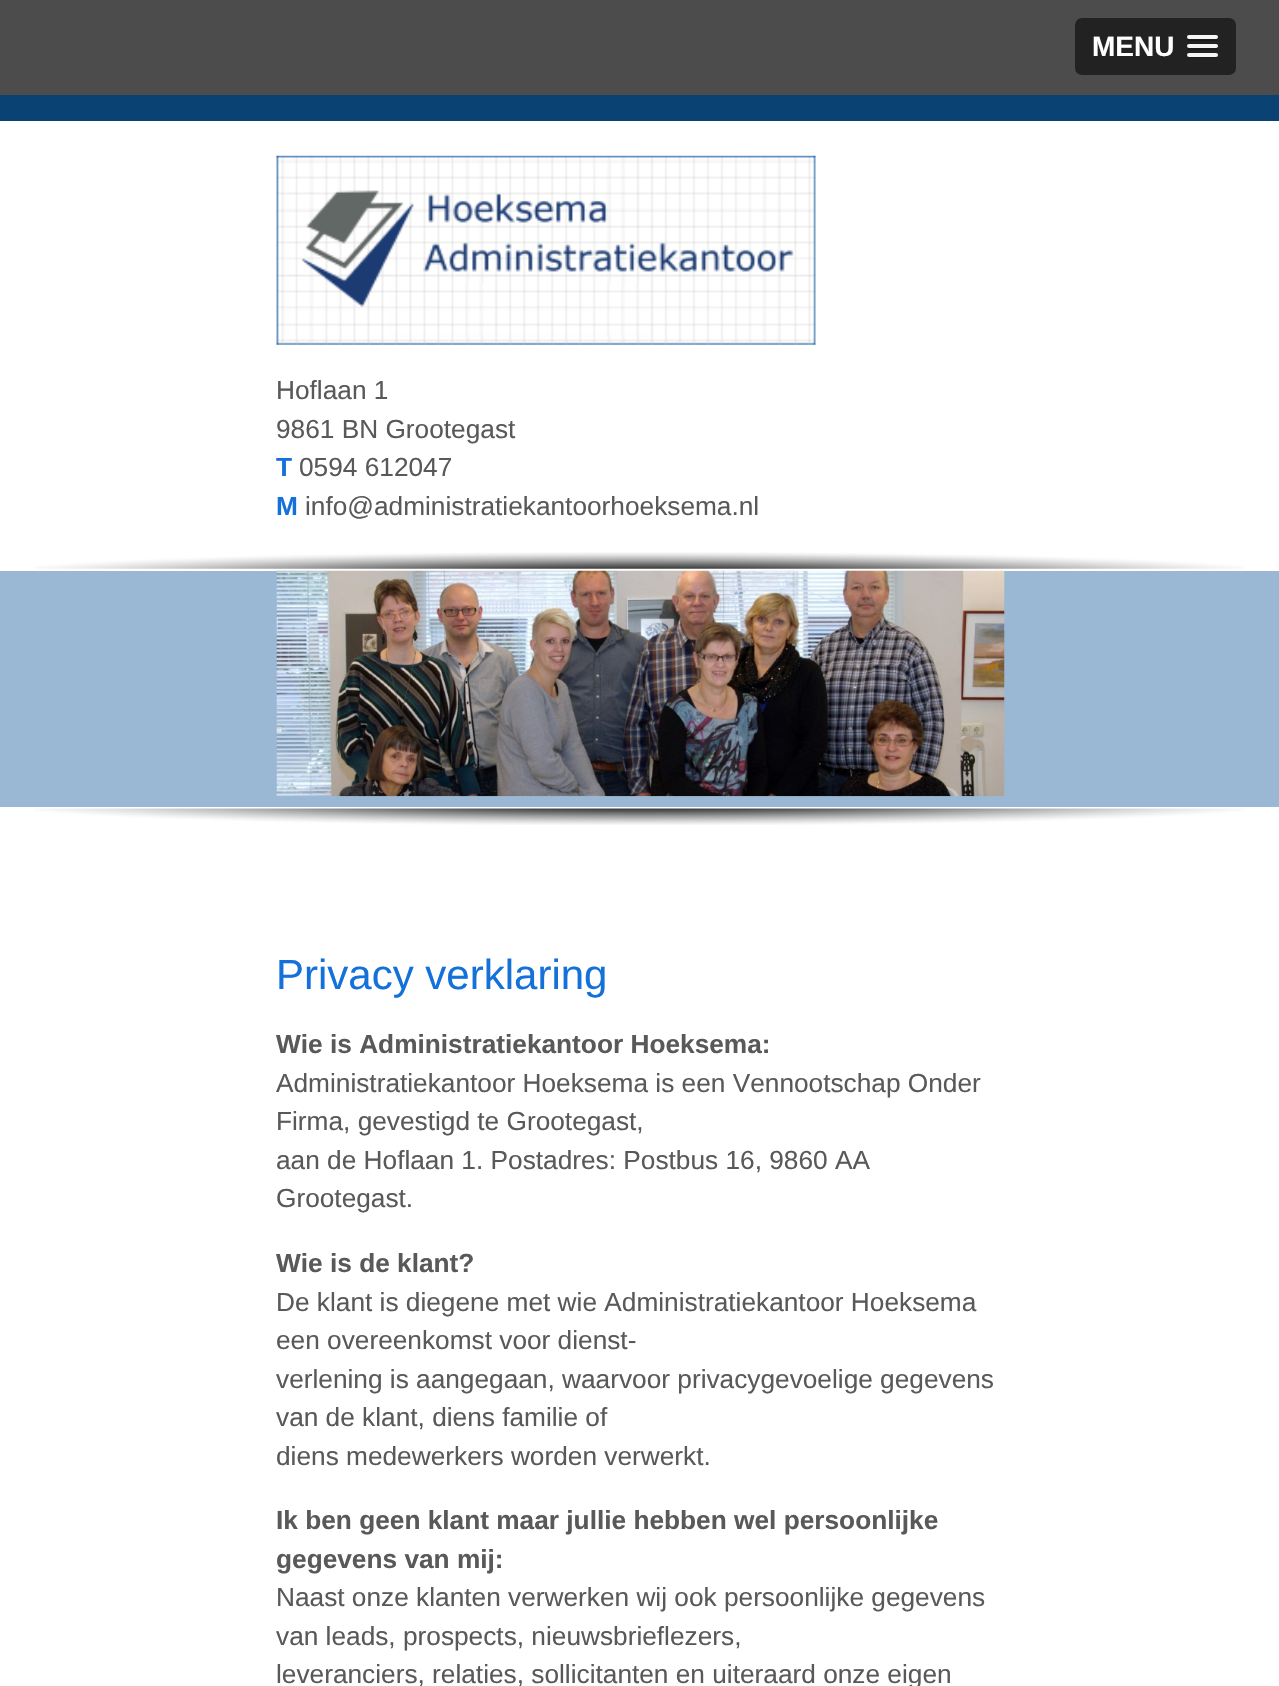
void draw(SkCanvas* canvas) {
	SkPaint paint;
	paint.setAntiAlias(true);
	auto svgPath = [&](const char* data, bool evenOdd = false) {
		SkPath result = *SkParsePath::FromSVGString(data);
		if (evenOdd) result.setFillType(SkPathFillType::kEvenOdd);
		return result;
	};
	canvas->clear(0xffffffff);
	paint.setColor(0xff4c4c4c);
	canvas->drawRect(SkRect::MakeXYWH(0, 0, 1279, 95), paint);
	paint.setColor(0xff222222);
	canvas->drawRoundRect(SkRect::MakeXYWH(1075, 18, 161, 57), 7, 7, paint);
	SkFont f1(fontMgr->matchFamilyStyle("Liberation Sans", SkFontStyle::Bold()), 28);
	f1.setSubpixel(true);
	paint.setColor(0xffffffff);
	canvas->drawString("MENU", 1092, 56, f1, paint);
	paint.setColor(0xff1a1a1a);
	canvas->drawPath(svgPath("M1187 38C1185.5 42 1192.5 41 1193.5 41H1211.5C1212.5 41 1217.5 42 1218 39.5L1217.5 38L1216.5 38.5C1214 39 1188 39 1187 38Z"), paint);
	paint.setColor(0xfff5f5f5);
	canvas->drawRoundRect(SkRect::MakeXYWH(1187, 35, 31, 4), 2, 2, paint);
	paint.setColor(0xff1a1a1a);
	canvas->drawPath(svgPath("M1187.5 47C1185 51 1193 50 1193.5 50H1211.5C1212.5 50 1217.5 51 1218 48.5C1218 48 1218 47 1217.5 46.5L1216.5 47C1214 47.5 1188 47.5 1187.5 47Z"), paint);
	paint.setColor(0xfff5f5f5);
	canvas->drawRoundRect(SkRect::MakeXYWH(1187, 44, 31, 4), 2, 2, paint);
	paint.setColor(0xff1a1a1a);
	canvas->drawPath(svgPath("M1187 55.5C1186 59 1192.5 58 1193.5 58H1211.5C1212.5 58 1219.5 59 1218 55L1216.5 56H1188Z"), paint);
	paint.setColor(0xfff5f5f5);
	canvas->drawRoundRect(SkRect::MakeXYWH(1187, 53, 31, 4), 2, 2, paint);
	paint.setColor(0xff0b4274);
	canvas->drawRect(SkRect::MakeXYWH(0, 95, 1279, 26), paint);
	canvas->drawImageRect(SkImages::DeferredFromEncodedData(SkData::MakeFromFileName("img1.png")), SkRect::MakeXYWH(276, 155, 540, 190), SkSamplingOptions());
	SkFont f2(fontMgr->matchFamilyStyle("Liberation Sans", SkFontStyle::Normal()), 26.25);
	f2.setSubpixel(true);
	paint.setColor(0xff595959);
	canvas->drawString("Hoflaan 1", 276, 399, f2, paint);
	canvas->drawString("9861 BN Grootegast", 276, 438, f2, paint);
	SkFont f3(fontMgr->matchFamilyStyle("Liberation Sans", SkFontStyle::Bold()), 26.25);
	f3.setSubpixel(true);
	paint.setColor(0xff1571da);
	canvas->drawString("T", 276, 476, f3, paint);
	paint.setColor(0xff595959);
	canvas->drawString("0594 612047", 299, 476, f2, paint);
	paint.setColor(0xff1571da);
	canvas->drawString("M", 276, 515, f3, paint);
	paint.setColor(0xff595959);
	canvas->drawString("info@administratiekantoorhoeksema.nl", 305, 515, f2, paint);
	canvas->drawImageRect(SkImages::DeferredFromEncodedData(SkData::MakeFromFileName("img2.png")), SkRect::MakeXYWH(35, 552, 1209, 273), SkSamplingOptions());
	paint.setColor(0xff9ab8d4);
	canvas->drawRect(SkRect::MakeXYWH(0, 571, 1279, 236), paint);
	canvas->drawImageRect(SkImages::DeferredFromEncodedData(SkData::MakeFromFileName("img3.png")), SkRect::MakeXYWH(276, 570, 729, 227), SkSamplingOptions());
	SkFont f4(fontMgr->matchFamilyStyle("Liberation Sans", SkFontStyle::Normal()), 42);
	f4.setSubpixel(true);
	paint.setColor(0xff1571da);
	canvas->drawString("Privacy verklaring", 276, 989, f4, paint);
	paint.setColor(0xff595959);
	canvas->drawString("Wie is Administratiekantoor Hoeksema:", 276, 1053, f3, paint);
	canvas->drawString("Administratiekantoor Hoeksema is een Vennootschap Onder", 276, 1092, f2, paint);
	canvas->drawString("Firma, gevestigd te Grootegast,", 276, 1130, f2, paint);
	canvas->drawString("aan de Hoflaan 1. Postadres: Postbus 16, 9860 AA", 276, 1169, f2, paint);
	canvas->drawString("Grootegast.", 276, 1207, f2, paint);
	canvas->drawString("Wie is de klant?", 276, 1272, f3, paint);
	canvas->drawString("De klant is diegene met wie Administratiekantoor Hoeksema", 276, 1311, f2, paint);
	canvas->drawString("een overeenkomst voor dienst-", 276, 1349, f2, paint);
	canvas->drawString("verlening is aangegaan, waarvoor privacygevoelige gegevens", 276, 1388, f2, paint);
	canvas->drawString("van de klant, diens familie of", 276, 1426, f2, paint);
	canvas->drawString("diens medewerkers worden verwerkt.", 276, 1465, f2, paint);
	canvas->drawString("Ik ben geen klant maar jullie hebben wel persoonlijke", 276, 1529, f3, paint);
	canvas->drawString("gegevens van mij:", 276, 1568, f3, paint);
	canvas->drawString("Naast onze klanten verwerken wij ook persoonlijke gegevens", 276, 1606, f2, paint);
	canvas->drawString("van leads, prospects, nieuwsbrieflezers,", 276, 1645, f2, paint);
	canvas->drawString("leveranciers, relaties, sollicitanten en uiteraard onze eigen", 276, 1683, f2, paint);
}
